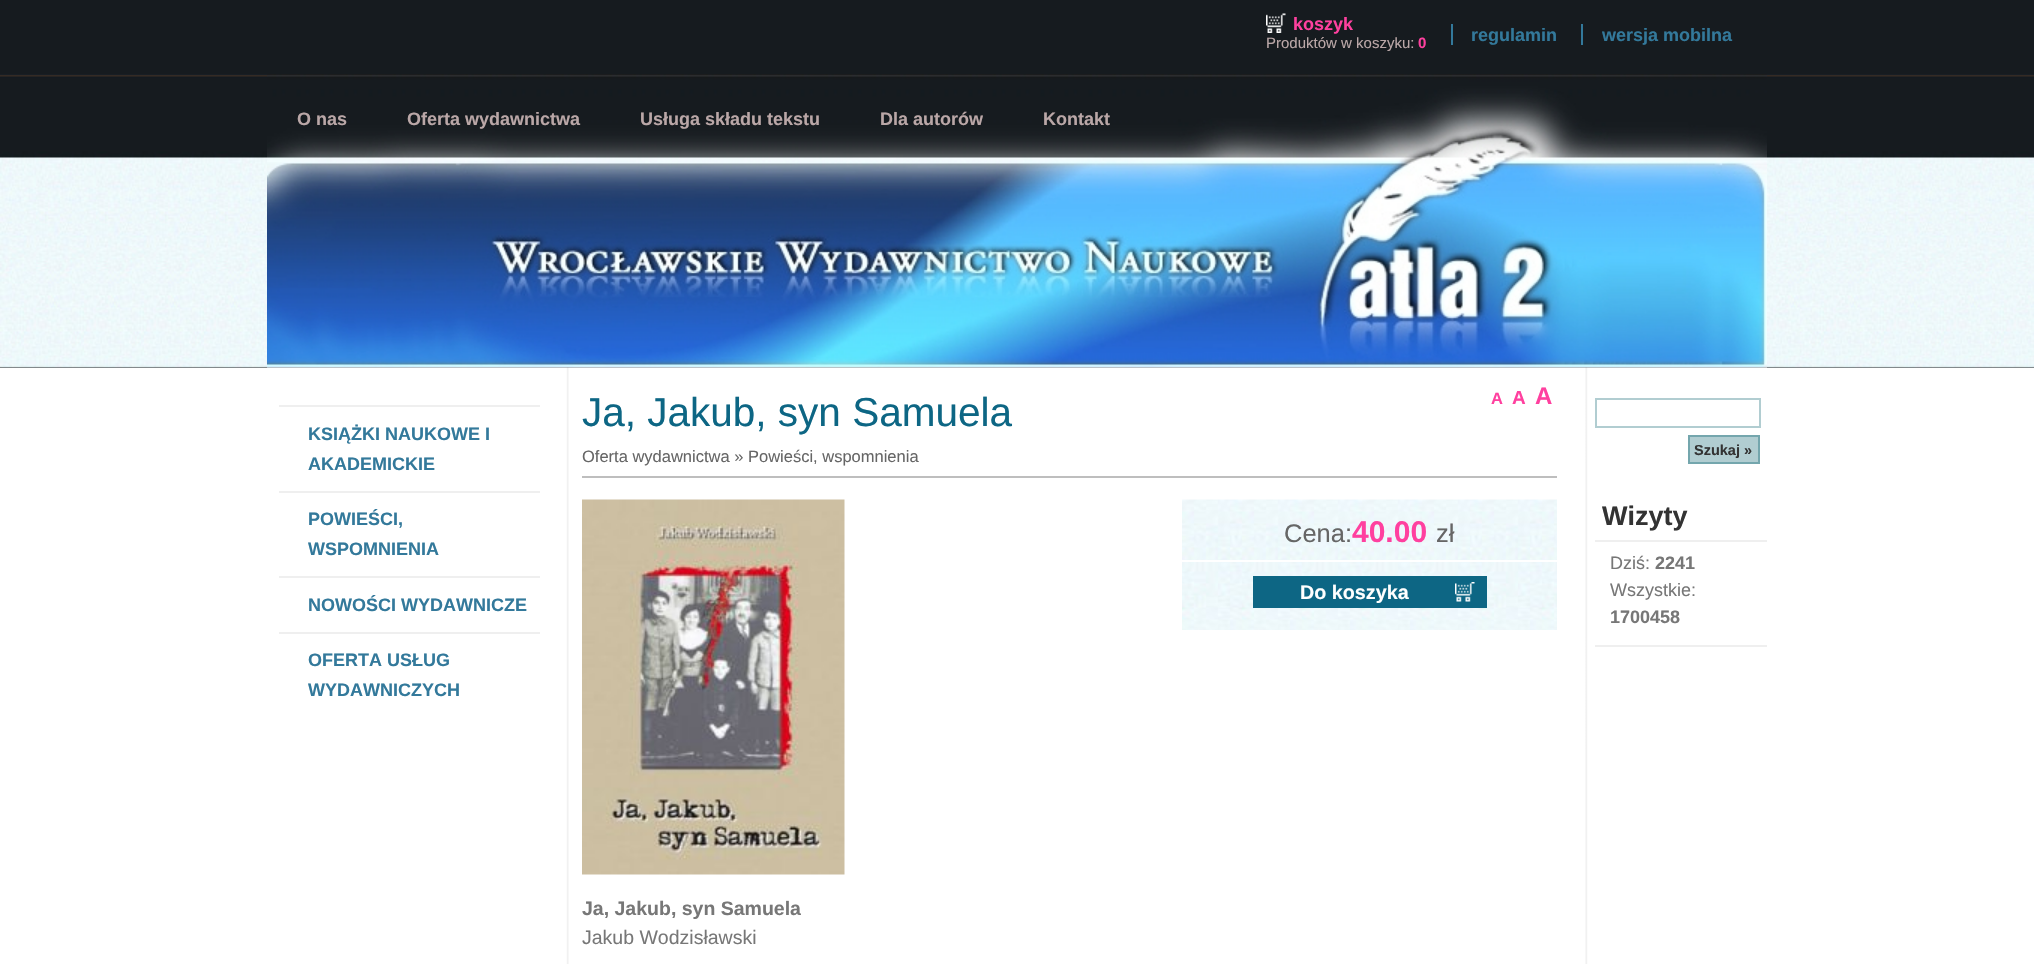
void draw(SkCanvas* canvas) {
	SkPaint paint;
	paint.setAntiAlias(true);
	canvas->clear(0xffffffff);
	paint.setColor(0xff161b1f);
	canvas->drawRect(SkRect::MakeXYWH(0, 0, 2034, 368), paint);
	canvas->drawImageRect(SkImages::DeferredFromEncodedData(SkData::MakeFromFileName("img1.png")), SkRect::MakeXYWH(0, 74, 2034, 294), SkSamplingOptions());
	canvas->drawRect(SkRect::MakeXYWH(267, 74, 1500, 294), paint);
	canvas->drawImageRect(SkImages::DeferredFromEncodedData(SkData::MakeFromFileName("img2.png")), SkRect::MakeXYWH(267, 74, 1500, 294), SkSamplingOptions());
	canvas->drawImageRect(SkImages::DeferredFromEncodedData(SkData::MakeFromFileName("img3.png")), SkRect::MakeXYWH(1266, 13, 20, 20), SkSamplingOptions());
	SkFont f1(fontMgr->matchFamilyStyle("Liberation Sans", SkFontStyle::Bold()), 18);
	f1.setSubpixel(true);
	paint.setColor(0xffff409f);
	canvas->drawString("koszyk", 1293, 30, f1, paint);
	SkFont f2(fontMgr->matchFamilyStyle("Liberation Sans", SkFontStyle::Normal()), 15);
	f2.setSubpixel(true);
	paint.setColor(0xffbaa7a7);
	canvas->drawString("Produktów w koszyku:", 1266, 48, f2, paint);
	SkFont f3(fontMgr->matchFamilyStyle("Liberation Sans", SkFontStyle::Bold()), 15);
	f3.setSubpixel(true);
	paint.setColor(0xffff409f);
	canvas->drawString("0", 1418, 48, f3, paint);
	paint.setColor(0xff33799b);
	canvas->drawString("regulamin", 1471, 41, f1, paint);
	canvas->drawRect(SkRect::MakeXYWH(1451, 24, 2, 21), paint);
	canvas->drawString("wersja mobilna", 1602, 41, f1, paint);
	canvas->drawRect(SkRect::MakeXYWH(1581, 24, 2, 21), paint);
	paint.setColor(0xffbaa7a7);
	canvas->drawString("O nas", 297, 125, f1, paint);
	canvas->drawString("Oferta wydawnictwa", 407, 125, f1, paint);
	canvas->drawString("Usługa składu tekstu", 640, 125, f1, paint);
	canvas->drawString("Dla autorów", 880, 125, f1, paint);
	canvas->drawString("Kontakt", 1043, 125, f1, paint);
	canvas->drawImageRect(SkImages::DeferredFromEncodedData(SkData::MakeFromFileName("img4.png")), SkRect::MakeXYWH(267, 367, 1500, 597), SkSamplingOptions());
	paint.setColor(0xffefefef);
	canvas->drawRect(SkRect::MakeXYWH(279, 405, 261, 2), paint);
	paint.setColor(0xff33799b);
	canvas->drawString("KSIĄŻKI NAUKOWE I", 308, 440, f1, paint);
	canvas->drawString("AKADEMICKIE", 308, 470, f1, paint);
	paint.setColor(0xffefefef);
	canvas->drawRect(SkRect::MakeXYWH(279, 491, 261, 2), paint);
	paint.setColor(0xff33799b);
	canvas->drawString("POWIEŚCI,", 308, 525, f1, paint);
	canvas->drawString("WSPOMNIENIA", 308, 555, f1, paint);
	paint.setColor(0xffefefef);
	canvas->drawRect(SkRect::MakeXYWH(279, 576, 261, 2), paint);
	paint.setColor(0xff33799b);
	canvas->drawString("NOWOŚCI WYDAWNICZE", 308, 611, f1, paint);
	paint.setColor(0xffefefef);
	canvas->drawRect(SkRect::MakeXYWH(279, 632, 261, 2), paint);
	paint.setColor(0xff33799b);
	canvas->drawString("OFERTA USŁUG", 308, 666, f1, paint);
	canvas->drawString("WYDAWNICZYCH", 308, 696, f1, paint);
	SkFont f4(fontMgr->matchFamilyStyle("Liberation Sans", SkFontStyle::Normal()), 40.5);
	f4.setSubpixel(true);
	paint.setColor(0xff0d6684);
	canvas->drawString("Ja, Jakub, syn Samuela", 582, 426, f4, paint);
	SkFont f5(fontMgr->matchFamilyStyle("Liberation Sans", SkFontStyle::Bold()), 16.5);
	f5.setSubpixel(true);
	paint.setColor(0xffff409f);
	canvas->drawString("A", 1491, 404, f5, paint);
	SkFont f6(fontMgr->matchFamilyStyle("Liberation Sans", SkFontStyle::Bold()), 19);
	f6.setSubpixel(true);
	canvas->drawString("A", 1512, 404, f6, paint);
	SkFont f7(fontMgr->matchFamilyStyle("Liberation Sans", SkFontStyle::Bold()), 24);
	f7.setSubpixel(true);
	canvas->drawString("A", 1535, 404, f7, paint);
	paint.setColor(0xffbebebe);
	canvas->drawRect(SkRect::MakeXYWH(582, 476, 975, 2), paint);
	SkFont f8(fontMgr->matchFamilyStyle("Liberation Sans", SkFontStyle::Normal()), 16.5);
	f8.setSubpixel(true);
	paint.setColor(0xff666666);
	canvas->drawString("Oferta wydawnictwa » Powieści, wspomnienia", 582, 462, f8, paint);
	canvas->drawImageRect(SkImages::DeferredFromEncodedData(SkData::MakeFromFileName("img5.png")), SkRect::MakeXYWH(582, 499, 263, 376), SkSamplingOptions());
	canvas->drawImageRect(SkImages::DeferredFromEncodedData(SkData::MakeFromFileName("img6.png")), SkRect::MakeXYWH(1182, 499, 375, 131), SkSamplingOptions());
	paint.setColor(0xffffffff);
	canvas->drawRect(SkRect::MakeXYWH(1182, 560, 375, 2), paint);
	SkFont f9(fontMgr->matchFamilyStyle("Liberation Sans", SkFontStyle::Normal()), 25.5);
	f9.setSubpixel(true);
	paint.setColor(0xff666666);
	canvas->drawString("Cena:", 1284, 542, f9, paint);
	SkFont f10(fontMgr->matchFamilyStyle("Liberation Sans", SkFontStyle::Bold()), 30);
	f10.setSubpixel(true);
	paint.setColor(0xffff409f);
	canvas->drawString("40.00", 1352, 542, f10, paint);
	paint.setColor(0xff666666);
	canvas->drawString("zł", 1436, 542, f9, paint);
	paint.setColor(0xff0d6684);
	canvas->drawRect(SkRect::MakeXYWH(1253, 576, 234, 32), paint);
	canvas->drawImageRect(SkImages::DeferredFromEncodedData(SkData::MakeFromFileName("img7.png")), SkRect::MakeXYWH(1455, 582, 20, 20), SkSamplingOptions());
	SkFont f11(fontMgr->matchFamilyStyle("Liberation Sans", SkFontStyle::Bold()), 19.75);
	f11.setSubpixel(true);
	paint.setColor(0xffffffff);
	canvas->drawString("Do koszyka", 1300, 599, f11, paint);
	SkFont f12(fontMgr->matchFamilyStyle("Liberation Sans", SkFontStyle::Bold()), 19.5);
	f12.setSubpixel(true);
	paint.setColor(0xff777777);
	canvas->drawString("Ja, Jakub, syn Samuela", 582, 915, f12, paint);
	SkFont f13(fontMgr->matchFamilyStyle("Liberation Sans", SkFontStyle::Normal()), 19.5);
	f13.setSubpixel(true);
	canvas->drawString("Jakub Wodzisławski", 582, 944, f13, paint);
	paint.setStroke(true);
	paint.setStrokeWidth(2);
	paint.setColor(0xffb1cdd1);
	canvas->drawRect(SkRect::MakeXYWH(1596, 399, 164, 28), paint);
	paint.setStroke(false);
	canvas->drawRect(SkRect::MakeXYWH(1689, 436, 70, 27), paint);
	paint.setStroke(true);
	paint.setColor(0xff74a6ad);
	canvas->drawRect(SkRect::MakeXYWH(1689, 436, 70, 27), paint);
	SkFont f14(fontMgr->matchFamilyStyle("Liberation Sans", SkFontStyle::Bold()), 14.5);
	f14.setSubpixel(true);
	paint.setStroke(false);
	paint.setColor(0xff333333);
	canvas->drawString("Szukaj »", 1694, 455, f14, paint);
	SkFont f15(fontMgr->matchFamilyStyle("Liberation Sans", SkFontStyle::Bold()), 27);
	f15.setSubpixel(true);
	canvas->drawString("Wizyty", 1602, 525, f15, paint);
	paint.setColor(0xffefefef);
	canvas->drawRect(SkRect::MakeXYWH(1595, 540, 172, 2), paint);
	canvas->drawRect(SkRect::MakeXYWH(1595, 645, 172, 2), paint);
	SkFont f16(fontMgr->matchFamilyStyle("Liberation Sans", SkFontStyle::Normal()), 18);
	f16.setSubpixel(true);
	paint.setColor(0xff777777);
	canvas->drawString("Dziś:", 1610, 569, f16, paint);
	canvas->drawString("2241", 1655, 569, f1, paint);
	canvas->drawString("Wszystkie:", 1610, 596, f16, paint);
	canvas->drawString("1700458", 1610, 623, f1, paint);
}
